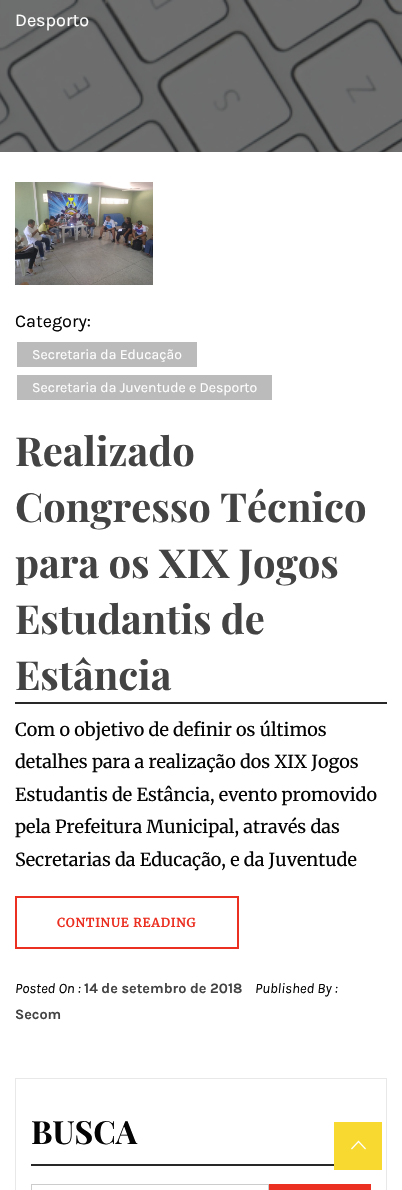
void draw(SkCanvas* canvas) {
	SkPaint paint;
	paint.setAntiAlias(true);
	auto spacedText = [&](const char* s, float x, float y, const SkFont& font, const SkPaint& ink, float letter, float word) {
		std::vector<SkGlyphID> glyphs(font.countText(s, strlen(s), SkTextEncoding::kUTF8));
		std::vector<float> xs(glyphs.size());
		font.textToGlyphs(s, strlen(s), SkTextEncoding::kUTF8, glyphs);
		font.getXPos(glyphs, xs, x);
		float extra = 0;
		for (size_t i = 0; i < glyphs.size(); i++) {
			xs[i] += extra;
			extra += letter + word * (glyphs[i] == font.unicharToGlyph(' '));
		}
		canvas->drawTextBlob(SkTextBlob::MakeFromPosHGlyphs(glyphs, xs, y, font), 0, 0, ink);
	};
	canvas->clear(0xffffffff);
	canvas->drawImageRect(SkImages::DeferredFromEncodedData(SkData::MakeFromFileName("img1.png")), SkRect::MakeXYWH(0, 0, 402, 152), SkSamplingOptions());
	SkFont f1(fontMgr->matchFamilyStyle("Karla", SkFontStyle::Normal()), 18);
	f1.setSubpixel(true);
	paint.setColor(0xffffffff);
	canvas->drawString("Desporto", 15, 26, f1, paint);
	canvas->drawImageRect(SkImages::DeferredFromEncodedData(SkData::MakeFromFileName("img2.png")), SkRect::MakeXYWH(15, 182, 138, 103), SkSamplingOptions());
	paint.setColor(0xff040404);
	canvas->drawString("Category:", 15, 327, f1, paint);
	paint.setColor(0xffbbbbbb);
	canvas->drawRect(SkRect::MakeXYWH(17, 342, 180, 25), paint);
	SkFont f2(fontMgr->matchFamilyStyle("Karla", SkFontStyle::Normal()), 14);
	f2.setSubpixel(true);
	paint.setColor(0xffffffff);
	canvas->drawString("Secretaria da Educação", 32, 359, f2, paint);
	paint.setColor(0xffbbbbbb);
	canvas->drawRect(SkRect::MakeXYWH(17, 375, 255, 25), paint);
	paint.setColor(0xffffffff);
	canvas->drawString("Secretaria da Juventude e Desporto", 32, 392, f2, paint);
	paint.setColor(0xff282828);
	canvas->drawRect(SkRect::MakeXYWH(15, 702, 372, 2), paint);
	SkFont f3(fontMgr->matchFamilyStyle("Playfair Display", SkFontStyle::Bold()), 40);
	f3.setSubpixel(true);
	paint.setColor(0xff434343);
	canvas->drawString("Realizado", 15, 466, f3, paint);
	canvas->drawString("Congresso Técnico", 15, 522, f3, paint);
	canvas->drawString("para os XIX Jogos", 15, 578, f3, paint);
	canvas->drawString("Estudantis de", 15, 634, f3, paint);
	canvas->drawString("Estância", 15, 690, f3, paint);
	SkFont f4(fontMgr->matchFamilyStyle("Merriweather", SkFontStyle(300, SkFontStyle::kNormal_Width, SkFontStyle::kUpright_Slant)), 18);
	f4.setSubpixel(true);
	paint.setColor(0xff040404);
	canvas->drawString("Com o objetivo de definir os últimos", 15, 736, f4, paint);
	canvas->drawString("detalhes para a realização dos XIX Jogos", 15, 768, f4, paint);
	canvas->drawString("Estudantis de Estância, evento promovido", 15, 801, f4, paint);
	canvas->drawString("pela Prefeitura Municipal, através das", 15, 833, f4, paint);
	canvas->drawString("Secretarias da Educação, e da Juventude", 15, 866, f4, paint);
	paint.setStroke(true);
	paint.setStrokeWidth(2);
	paint.setColor(0xffeb2f21);
	canvas->drawRect(SkRect::MakeXYWH(16, 897, 222, 51), paint);
	SkFont f5(fontMgr->matchFamilyStyle("Merriweather", SkFontStyle::Bold()), 12);
	f5.setSubpixel(true);
	paint.setStroke(false);
	spacedText("CONTINUE READING", 57, 927, f5, paint, 1, 0);
	SkFont f6(fontMgr->matchFamilyStyle("Karla", SkFontStyle::Italic()), 14.4);
	f6.setSubpixel(true);
	paint.setColor(0xff040404);
	canvas->drawString("Posted On :", 15, 993, f6, paint);
	SkFont f7(fontMgr->matchFamilyStyle("Karla", SkFontStyle::Bold()), 14.4);
	f7.setSubpixel(true);
	paint.setColor(0xff434343);
	canvas->drawString("14 de setembro de 2018", 84, 993, f7, paint);
	paint.setColor(0xff040404);
	canvas->drawString("Published By :", 255, 993, f6, paint);
	paint.setColor(0xff434343);
	canvas->drawString("Secom", 15, 1019, f7, paint);
	paint.setStroke(true);
	paint.setStrokeWidth(1);
	paint.setColor(0xffe8e8e8);
	canvas->drawRect(SkRect::MakeXYWH(15.5, 1078.5, 371, 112), paint);
	SkFont f8(fontMgr->matchFamilyStyle("Playfair Display", SkFontStyle::Bold()), 32);
	f8.setSubpixel(true);
	paint.setStroke(false);
	paint.setColor(0xff040404);
	canvas->drawString("BUSCA", 31, 1144, f8, paint);
	paint.setColor(0xff282828);
	canvas->drawRect(SkRect::MakeXYWH(31, 1164, 303, 2), paint);
	paint.setStroke(true);
	paint.setColor(0xffcccccc);
	canvas->drawRect(SkRect::MakeXYWH(31.5, 1184.5, 237, 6), paint);
	paint.setStroke(false);
	paint.setColor(0xffeb2f21);
	canvas->drawRect(SkRect::MakeXYWH(269, 1184, 102, 6), paint);
	paint.setColor(0xfff8d92f);
	canvas->drawRect(SkRect::MakeXYWH(334, 1122, 48, 48), paint);
	canvas->drawImageRect(SkImages::DeferredFromEncodedData(SkData::MakeFromFileName("img3.png")), SkRect::MakeXYWH(351, 1140, 15, 10), SkSamplingOptions());
}
